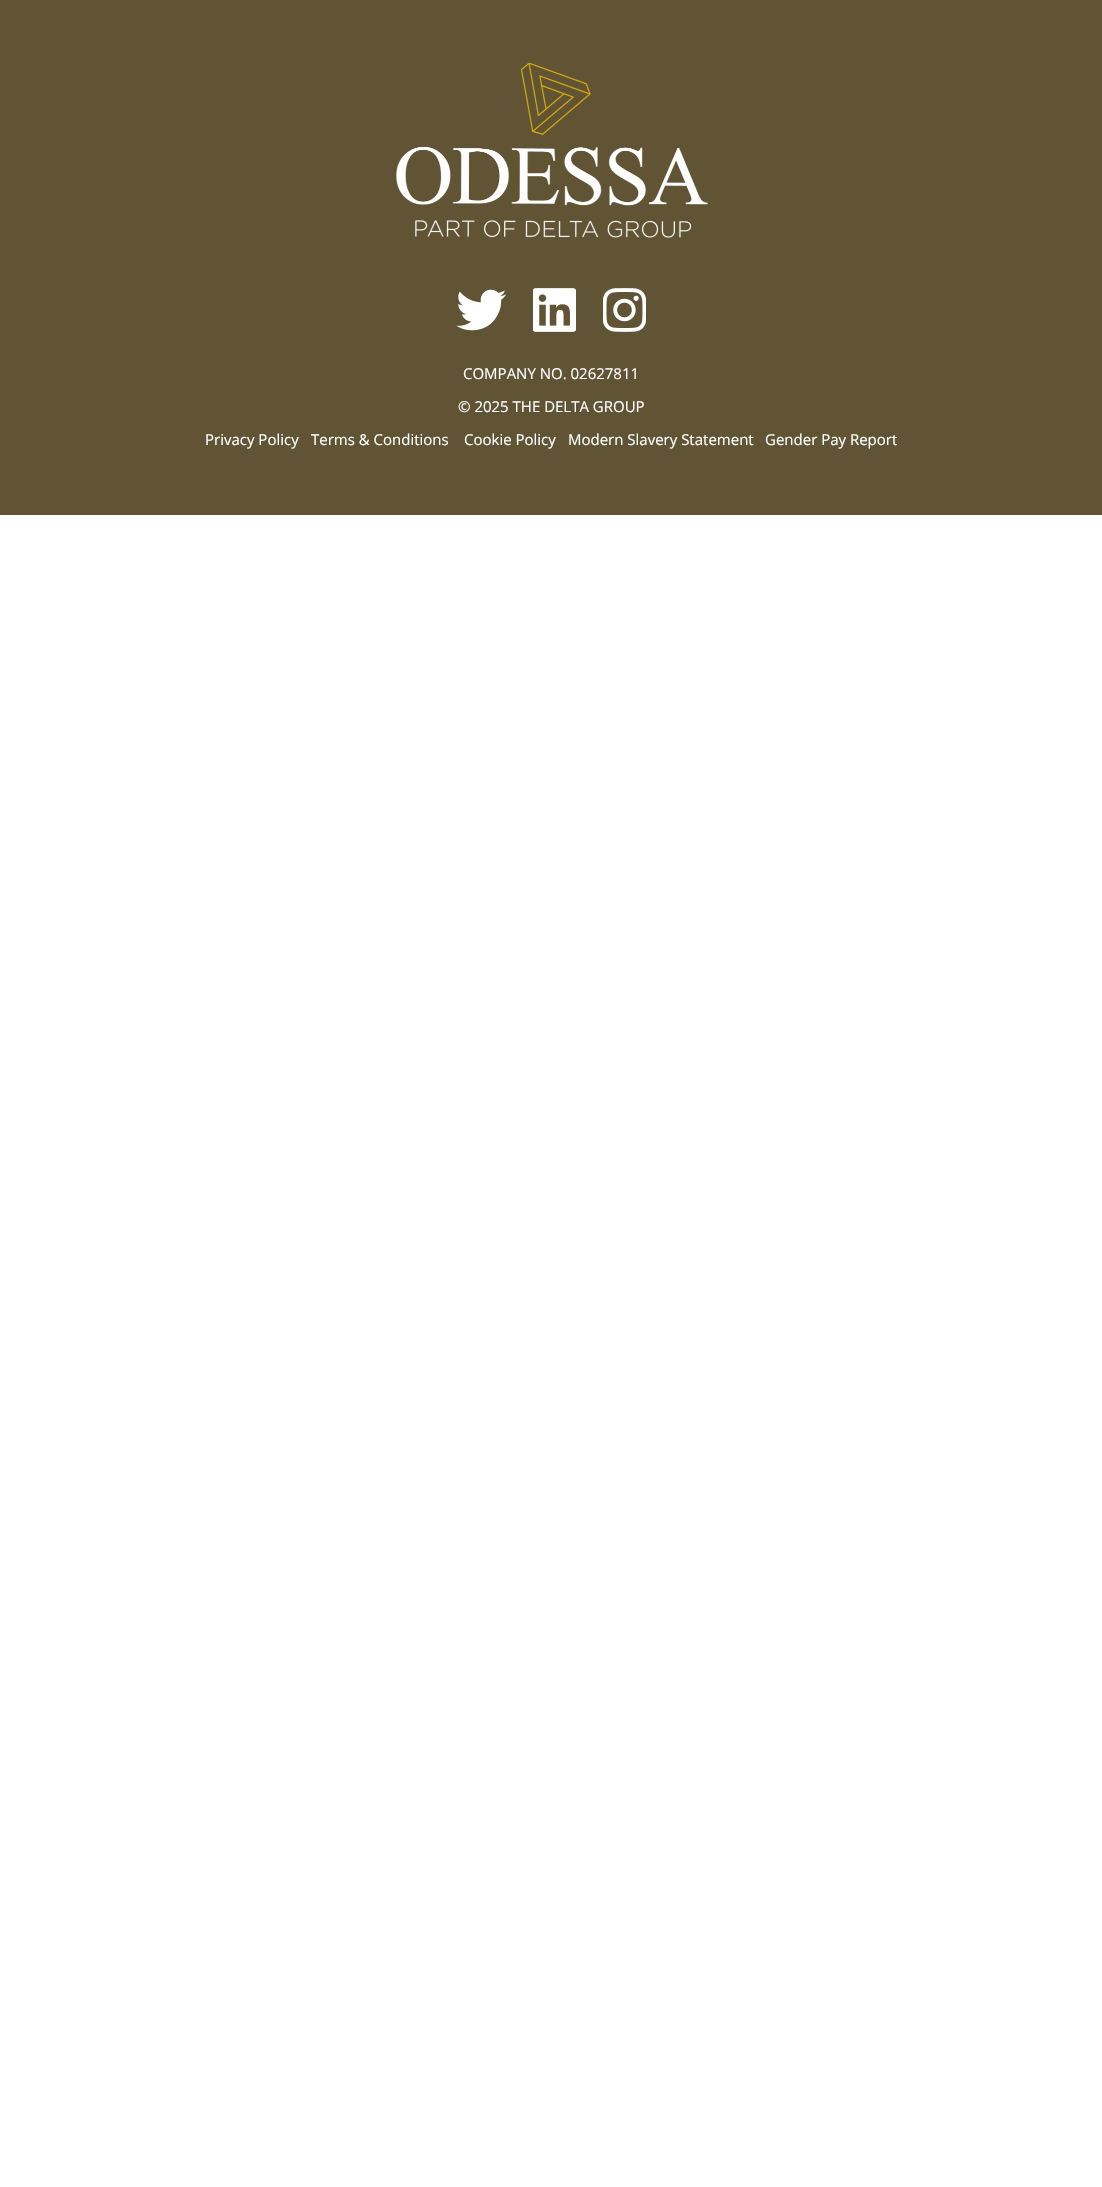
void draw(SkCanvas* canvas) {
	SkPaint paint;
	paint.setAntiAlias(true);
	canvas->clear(0xffffffff);
	paint.setColor(0xff605435);
	canvas->drawRect(SkRect::MakeXYWH(0, 0, 1102, 515), paint);
	canvas->drawImageRect(SkImages::DeferredFromEncodedData(SkData::MakeFromFileName("img1.png")), SkRect::MakeXYWH(396, 63, 312, 175), SkSamplingOptions());
	canvas->drawImageRect(SkImages::DeferredFromEncodedData(SkData::MakeFromFileName("img2.png")), SkRect::MakeXYWH(456, 289, 50, 42), SkSamplingOptions());
	canvas->drawImageRect(SkImages::DeferredFromEncodedData(SkData::MakeFromFileName("img3.png")), SkRect::MakeXYWH(533, 288, 43, 44), SkSamplingOptions());
	canvas->drawImageRect(SkImages::DeferredFromEncodedData(SkData::MakeFromFileName("img4.png")), SkRect::MakeXYWH(603, 288, 43, 44), SkSamplingOptions());
	SkFont f1(fontMgr->matchFamilyStyle("Open Sans", SkFontStyle::Normal()), 15);
	f1.setSubpixel(true);
	paint.setColor(0xffffffff);
	canvas->drawString("COMPANY NO. 02627811", 463, 379, f1, paint);
	canvas->drawString("© 2025 THE DELTA GROUP", 458, 412, f1, paint);
	canvas->drawString("Privacy Policy", 205, 445, f1, paint);
	canvas->drawString("Terms & Conditions", 311, 445, f1, paint);
	canvas->drawString("Cookie Policy", 464, 445, f1, paint);
	canvas->drawString("Modern Slavery Statement", 568, 445, f1, paint);
	canvas->drawString("Gender Pay Report", 765, 445, f1, paint);
}
